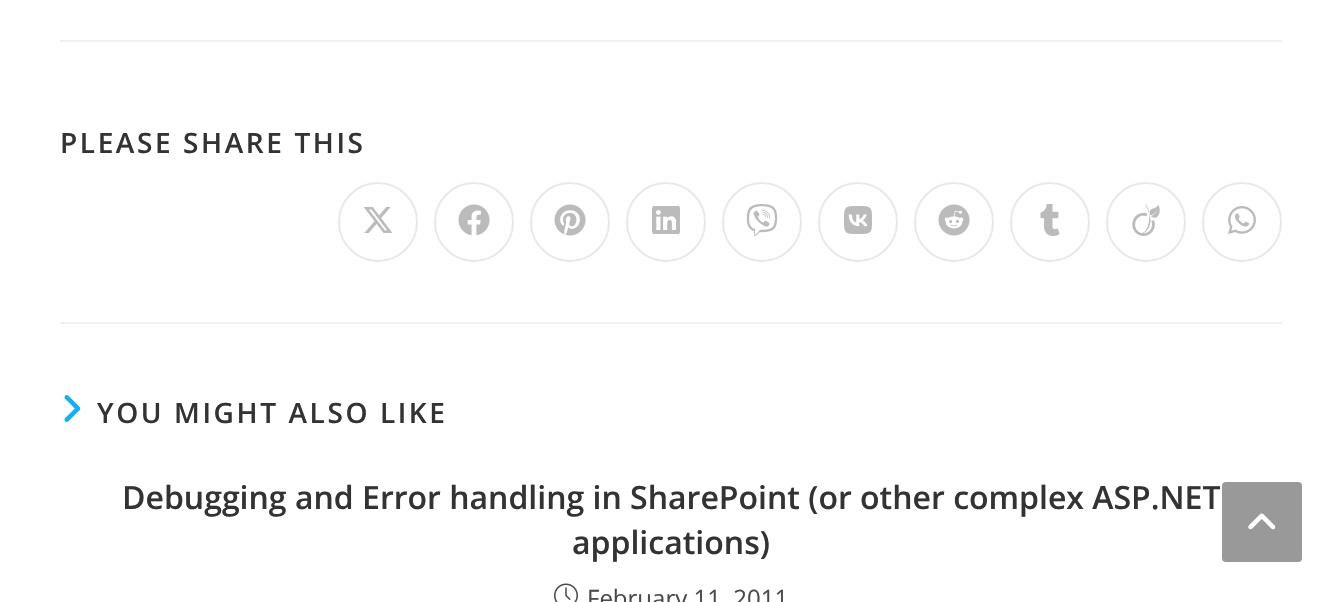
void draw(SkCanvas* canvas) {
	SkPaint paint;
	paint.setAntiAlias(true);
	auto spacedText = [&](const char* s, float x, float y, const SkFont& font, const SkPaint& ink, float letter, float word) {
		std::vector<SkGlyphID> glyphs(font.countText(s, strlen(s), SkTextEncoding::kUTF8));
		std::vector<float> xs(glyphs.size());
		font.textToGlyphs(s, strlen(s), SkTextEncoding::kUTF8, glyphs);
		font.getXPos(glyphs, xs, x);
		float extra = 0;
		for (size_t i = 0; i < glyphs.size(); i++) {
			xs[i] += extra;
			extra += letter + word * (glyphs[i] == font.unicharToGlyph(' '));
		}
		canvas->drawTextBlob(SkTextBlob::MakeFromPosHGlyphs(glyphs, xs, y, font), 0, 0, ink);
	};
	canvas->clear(0xffffffff);
	paint.setColor(0xfff1f1f1);
	canvas->drawRect(SkRect::MakeXYWH(60, 40, 1222, 2), paint);
	SkFont f1(fontMgr->matchFamilyStyle("Open Sans", SkFontStyle(600, SkFontStyle::kNormal_Width, SkFontStyle::kUpright_Slant)), 28);
	f1.setSubpixel(true);
	paint.setColor(0xff333333);
	spacedText("PLEASE SHARE THIS", 60, 153, f1, paint, 2.6, 0);
	paint.setStroke(true);
	paint.setStrokeWidth(2);
	paint.setColor(0xffe9e9e9);
	canvas->drawCircle(378, 222, 39, paint);
	canvas->drawImageRect(SkImages::DeferredFromEncodedData(SkData::MakeFromFileName("img1.png")), SkRect::MakeXYWH(363, 207, 30, 26), SkSamplingOptions());
	canvas->drawCircle(474, 222, 39, paint);
	canvas->drawImageRect(SkImages::DeferredFromEncodedData(SkData::MakeFromFileName("img2.png")), SkRect::MakeXYWH(458, 204, 32, 32), SkSamplingOptions());
	canvas->drawCircle(570, 222, 39, paint);
	canvas->drawImageRect(SkImages::DeferredFromEncodedData(SkData::MakeFromFileName("img3.png")), SkRect::MakeXYWH(554, 204, 32, 32), SkSamplingOptions());
	canvas->drawCircle(666, 222, 39, paint);
	canvas->drawImageRect(SkImages::DeferredFromEncodedData(SkData::MakeFromFileName("img4.png")), SkRect::MakeXYWH(652, 206, 28, 28), SkSamplingOptions());
	canvas->drawCircle(762, 222, 39, paint);
	canvas->drawImageRect(SkImages::DeferredFromEncodedData(SkData::MakeFromFileName("img5.png")), SkRect::MakeXYWH(746, 204, 32, 32), SkSamplingOptions());
	canvas->drawCircle(858, 222, 39, paint);
	canvas->drawImageRect(SkImages::DeferredFromEncodedData(SkData::MakeFromFileName("img6.png")), SkRect::MakeXYWH(844, 206, 28, 28), SkSamplingOptions());
	canvas->drawCircle(954, 222, 39, paint);
	canvas->drawImageRect(SkImages::DeferredFromEncodedData(SkData::MakeFromFileName("img7.png")), SkRect::MakeXYWH(938, 204, 32, 32), SkSamplingOptions());
	canvas->drawCircle(1050, 222, 39, paint);
	canvas->drawImageRect(SkImages::DeferredFromEncodedData(SkData::MakeFromFileName("img8.png")), SkRect::MakeXYWH(1040, 204, 20, 32), SkSamplingOptions());
	canvas->drawCircle(1146, 222, 39, paint);
	canvas->drawImageRect(SkImages::DeferredFromEncodedData(SkData::MakeFromFileName("img9.png")), SkRect::MakeXYWH(1132, 204, 28, 32), SkSamplingOptions());
	canvas->drawCircle(1242, 222, 39, paint);
	canvas->drawImageRect(SkImages::DeferredFromEncodedData(SkData::MakeFromFileName("img10.png")), SkRect::MakeXYWH(1228, 206, 28, 28), SkSamplingOptions());
	paint.setStroke(false);
	paint.setColor(0xfff1f1f1);
	canvas->drawRect(SkRect::MakeXYWH(60, 322, 1222, 2), paint);
	canvas->drawImageRect(SkImages::DeferredFromEncodedData(SkData::MakeFromFileName("img11.png")), SkRect::MakeXYWH(64, 395, 17, 27), SkSamplingOptions());
	paint.setColor(0xff333333);
	spacedText("YOU MIGHT ALSO LIKE", 97, 423, f1, paint, 2.6, 0);
	SkFont f2(fontMgr->matchFamilyStyle("Open Sans", SkFontStyle(600, SkFontStyle::kNormal_Width, SkFontStyle::kUpright_Slant)), 32);
	f2.setSubpixel(true);
	canvas->drawString("Debugging and Error handling in SharePoint (or other complex ASP.NET", 122, 509, f2, paint);
	canvas->drawString("applications)", 572, 554, f2, paint);
	canvas->drawImageRect(SkImages::DeferredFromEncodedData(SkData::MakeFromFileName("img12.png")), SkRect::MakeXYWH(554, 583, 24, 19), SkSamplingOptions());
	SkFont f3(fontMgr->matchFamilyStyle("Open Sans", SkFontStyle::Normal()), 24);
	f3.setSubpixel(true);
	paint.setColor(0xff4a4a4a);
	canvas->drawString("February 11, 2011", 587, 607, f3, paint);
	paint.setColor(0xff999999);
	canvas->drawRoundRect(SkRect::MakeXYWH(1222, 482, 80, 80), 4, 4, paint);
	canvas->drawImageRect(SkImages::DeferredFromEncodedData(SkData::MakeFromFileName("img13.png")), SkRect::MakeXYWH(1248, 513, 28, 17), SkSamplingOptions());
}
